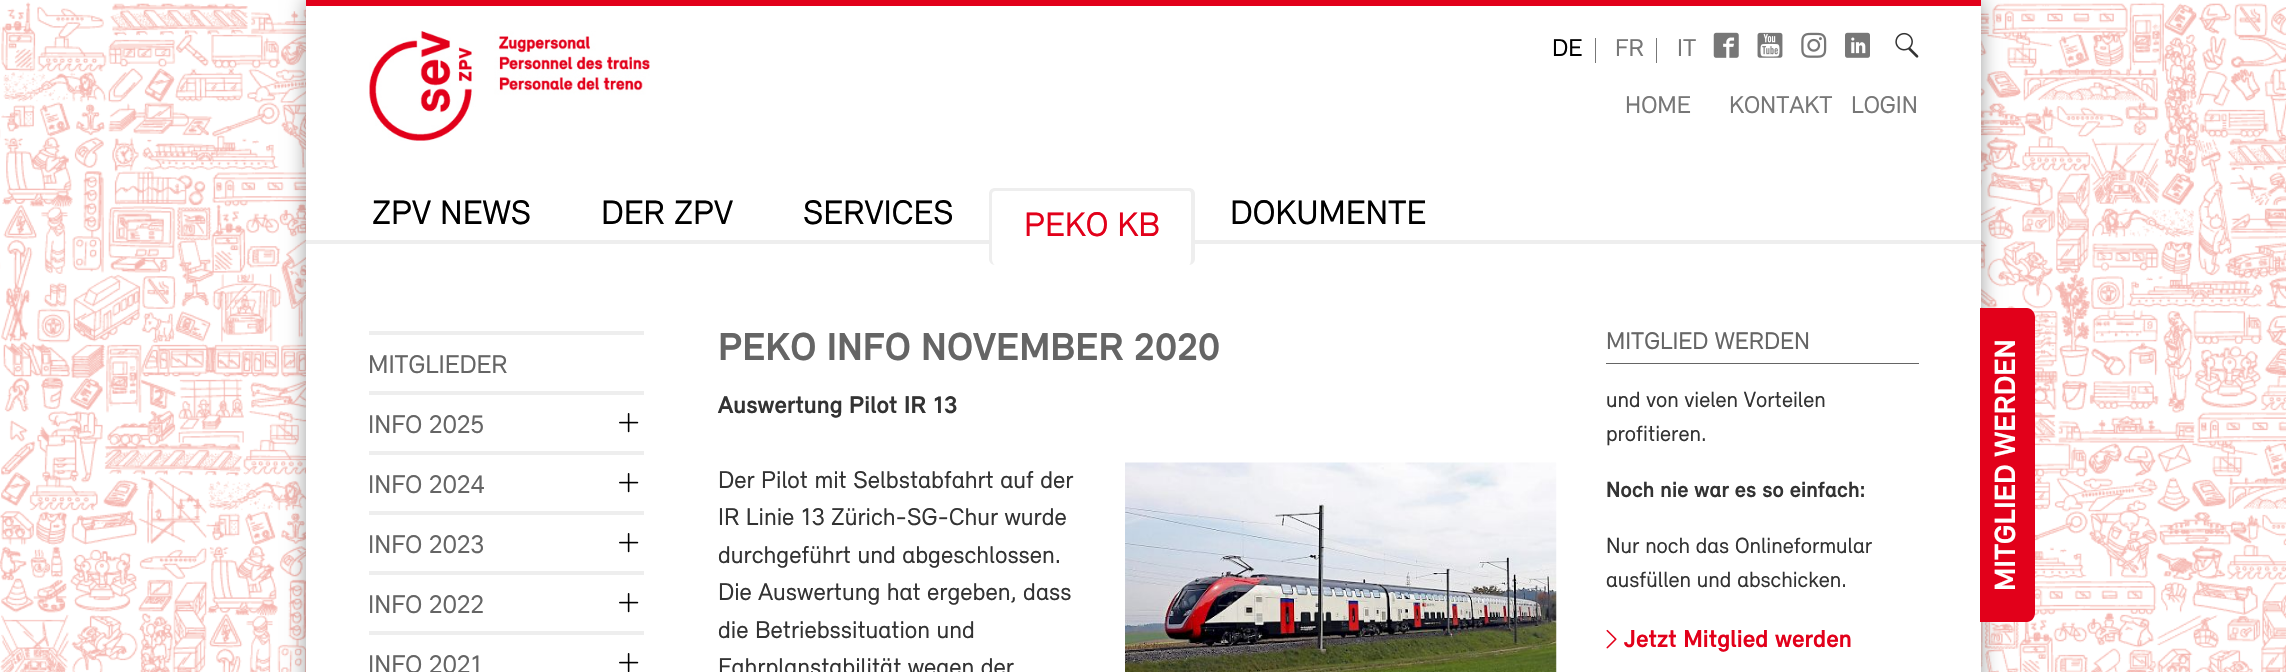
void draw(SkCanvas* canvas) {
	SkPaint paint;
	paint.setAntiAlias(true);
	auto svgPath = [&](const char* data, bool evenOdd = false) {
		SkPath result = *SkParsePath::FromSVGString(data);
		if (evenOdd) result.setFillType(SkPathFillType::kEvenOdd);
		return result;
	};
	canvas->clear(0xffffffff);
	canvas->drawImageRect(SkImages::DeferredFromEncodedData(SkData::MakeFromFileName("img1.png")), SkRect::MakeXYWH(0, 2, 2286, 670), SkSamplingOptions());
	paint.setColor(0x63000000);
	paint.setMaskFilter(SkMaskFilter::MakeBlur(kNormal_SkBlurStyle, 9.5));
	canvas->drawRect(SkRect::MakeXYWH(306, 0, 1675, 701), paint);
	paint.setMaskFilter(nullptr);
	paint.setColor(0xffffffff);
	canvas->drawRect(SkRect::MakeXYWH(306, 6, 1675, 666), paint);
	paint.setColor(0xffe2001a);
	canvas->drawRect(SkRect::MakeXYWH(306, 0, 1675, 6), paint);
	paint.setColor(0xffeeeeee);
	canvas->drawRect(SkRect::MakeXYWH(306, 240, 1675, 4), paint);
	canvas->drawImageRect(SkImages::DeferredFromEncodedData(SkData::MakeFromFileName("img2.png")), SkRect::MakeXYWH(369, 31, 281, 110), SkSamplingOptions());
	paint.setColor(0xff777777);
	canvas->drawRect(SkRect::MakeXYWH(1595, 38, 1, 25), paint);
	SkFont f1(fontMgr->matchFamilyStyle("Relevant", SkFontStyle::Normal()), 25);
	f1.setSubpixel(true);
	paint.setColor(0xff000000);
	canvas->drawString("DE", 1552, 56, f1, paint);
	paint.setColor(0xff777777);
	canvas->drawRect(SkRect::MakeXYWH(1656, 38, 1, 25), paint);
	canvas->drawString("FR", 1615, 56, f1, paint);
	canvas->drawString("IT", 1677, 56, f1, paint);
	canvas->drawImageRect(SkImages::DeferredFromEncodedData(SkData::MakeFromFileName("img3.png")), SkRect::MakeXYWH(1713, 32, 26, 26), SkSamplingOptions());
	canvas->drawImageRect(SkImages::DeferredFromEncodedData(SkData::MakeFromFileName("img4.png")), SkRect::MakeXYWH(1757, 32, 26, 26), SkSamplingOptions());
	canvas->drawImageRect(SkImages::DeferredFromEncodedData(SkData::MakeFromFileName("img5.png")), SkRect::MakeXYWH(1801, 32, 26, 26), SkSamplingOptions());
	canvas->drawImageRect(SkImages::DeferredFromEncodedData(SkData::MakeFromFileName("img6.png")), SkRect::MakeXYWH(1845, 32, 25, 26), SkSamplingOptions());
	canvas->drawImageRect(SkImages::DeferredFromEncodedData(SkData::MakeFromFileName("img7.png")), SkRect::MakeXYWH(1895, 32, 24, 26), SkSamplingOptions());
	canvas->drawString("HOME", 1625, 113, f1, paint);
	canvas->drawString("KONTAKT", 1729, 113, f1, paint);
	canvas->drawString("LOGIN", 1851, 113, f1, paint);
	SkFont f2(fontMgr->matchFamilyStyle("Relevant", SkFontStyle::Normal()), 35);
	f2.setSubpixel(true);
	paint.setColor(0xff000000);
	canvas->drawString("ZPV NEWS", 372, 224, f2, paint);
	canvas->drawString("DER ZPV", 601, 224, f2, paint);
	canvas->drawString("SERVICES", 803, 224, f2, paint);
	paint.setColor(0xffffffff);
	canvas->drawRoundRect(SkRect::MakeXYWH(989, 188, 206, 77), 6, 6, paint);
	paint.setColor(0xffeeeeee);
	canvas->drawPath(svgPath("M995 188H1189C1192 188 1195 190 1195 194V259C1195 262 1192 265 1189 265H995C992 265 989 262 989 259V194C989 190 992 188 995 188ZM995 191H1189C1190 191 1191 192 1191 194V259C1191 262 1190 265 1189 265H995C994 265 992 262 992 259V194C992 192 994 191 995 191Z", true), paint);
	paint.setColor(0xffe2001a);
	canvas->drawString("PEKO KB", 1024, 236, f2, paint);
	paint.setColor(0xff000000);
	canvas->drawString("DOKUMENTE", 1230, 224, f2, paint);
	paint.setColor(0xffeeeeee);
	canvas->drawRect(SkRect::MakeXYWH(369, 331, 275, 4), paint);
	canvas->drawRect(SkRect::MakeXYWH(369, 391, 275, 4), paint);
	SkFont f3(fontMgr->matchFamilyStyle("Relevant", SkFontStyle::Normal()), 26.25);
	f3.setSubpixel(true);
	paint.setColor(0xff656565);
	canvas->drawString("MITGLIEDER", 368, 373, f3, paint);
	paint.setColor(0xffeeeeee);
	canvas->drawRect(SkRect::MakeXYWH(369, 451, 275, 4), paint);
	paint.setColor(0xff656565);
	canvas->drawString("INFO 2025", 368, 433, f3, paint);
	canvas->drawImageRect(SkImages::DeferredFromEncodedData(SkData::MakeFromFileName("img8.png")), SkRect::MakeXYWH(619, 413, 20, 20), SkSamplingOptions());
	paint.setColor(0xffeeeeee);
	canvas->drawRect(SkRect::MakeXYWH(369, 511, 275, 4), paint);
	paint.setColor(0xff656565);
	canvas->drawString("INFO 2024", 368, 493, f3, paint);
	canvas->drawImageRect(SkImages::DeferredFromEncodedData(SkData::MakeFromFileName("img8.png")), SkRect::MakeXYWH(619, 473, 20, 20), SkSamplingOptions());
	paint.setColor(0xffeeeeee);
	canvas->drawRect(SkRect::MakeXYWH(369, 571, 275, 4), paint);
	paint.setColor(0xff656565);
	canvas->drawString("INFO 2023", 368, 553, f3, paint);
	canvas->drawImageRect(SkImages::DeferredFromEncodedData(SkData::MakeFromFileName("img8.png")), SkRect::MakeXYWH(619, 533, 20, 20), SkSamplingOptions());
	paint.setColor(0xffeeeeee);
	canvas->drawRect(SkRect::MakeXYWH(369, 631, 275, 4), paint);
	paint.setColor(0xff656565);
	canvas->drawString("INFO 2022", 368, 613, f3, paint);
	canvas->drawImageRect(SkImages::DeferredFromEncodedData(SkData::MakeFromFileName("img8.png")), SkRect::MakeXYWH(619, 593, 20, 20), SkSamplingOptions());
	canvas->drawString("INFO 2021", 368, 673, f3, paint);
	canvas->drawImageRect(SkImages::DeferredFromEncodedData(SkData::MakeFromFileName("img9.png")), SkRect::MakeXYWH(619, 653, 20, 19), SkSamplingOptions());
	SkFont f4(fontMgr->matchFamilyStyle("Relevant", SkFontStyle::Bold()), 40);
	f4.setSubpixel(true);
	canvas->drawString("PEKO INFO NOVEMBER 2020", 718, 360, f4, paint);
	SkFont f5(fontMgr->matchFamilyStyle("Relevant", SkFontStyle::Bold()), 25);
	f5.setSubpixel(true);
	paint.setColor(0xff333333);
	canvas->drawString("Auswertung Pilot IR 13", 718, 413, f5, paint);
	canvas->drawString("Der Pilot mit Selbstabfahrt auf der", 718, 488, f1, paint);
	canvas->drawString("IR Linie 13 Zürich-SG-Chur wurde", 718, 525, f1, paint);
	canvas->drawString("durchgeführt und abgeschlossen.", 718, 563, f1, paint);
	canvas->drawString("Die Auswertung hat ergeben, dass", 718, 600, f1, paint);
	canvas->drawString("die Betriebssituation und", 718, 638, f1, paint);
	canvas->drawString("Fahrplanstabilität wegen der", 718, 675, f1, paint);
	canvas->drawImageRect(SkImages::DeferredFromEncodedData(SkData::MakeFromFileName("img10.png")), SkRect::MakeXYWH(1125, 462, 432, 210), SkSamplingOptions());
	paint.setColor(0xff656565);
	canvas->drawRect(SkRect::MakeXYWH(1606, 363, 313, 1), paint);
	SkFont f6(fontMgr->matchFamilyStyle("Relevant", SkFontStyle::Normal()), 24.75);
	f6.setSubpixel(true);
	canvas->drawString("MITGLIED WERDEN", 1606, 349, f6, paint);
	SkFont f7(fontMgr->matchFamilyStyle("Relevant", SkFontStyle::Normal()), 22.5);
	f7.setSubpixel(true);
	paint.setColor(0xff333333);
	canvas->drawString("und von vielen Vorteilen", 1606, 407, f7, paint);
	canvas->drawString("profitieren.", 1606, 441, f7, paint);
	SkFont f8(fontMgr->matchFamilyStyle("Relevant", SkFontStyle::Bold()), 22.5);
	f8.setSubpixel(true);
	canvas->drawString("Noch nie war es so einfach:", 1606, 497, f8, paint);
	canvas->drawString("Nur noch das Onlineformular", 1606, 553, f7, paint);
	canvas->drawString("ausfüllen und abschicken.", 1606, 587, f7, paint);
	canvas->drawImageRect(SkImages::DeferredFromEncodedData(SkData::MakeFromFileName("img11.png")), SkRect::MakeXYWH(1606, 629, 11, 20), SkSamplingOptions());
	SkFont f9(fontMgr->matchFamilyStyle("Relevant", SkFontStyle::Bold()), 25.25);
	f9.setSubpixel(true);
	paint.setColor(0xffe2001a);
	canvas->drawString("Jetzt Mitglied werden", 1624, 647, f9, paint);
	canvas->drawPath(svgPath("M1980 622V308H2027C2031 308 2035 312 2035 317V613C2035 618 2031 622 2027 622Z"), paint);
	SkFont f10(fontMgr->matchFamilyStyle("Relevant", SkFontStyle::Bold()), 30);
	f10.setSubpixel(true);
	paint.setColor(0xffffffff);
	canvas->save();
	canvas->rotate(-90, 2015, 591);
	canvas->drawString("MITGLIED WERDEN", 2015, 591, f10, paint);
	canvas->restore();
}
